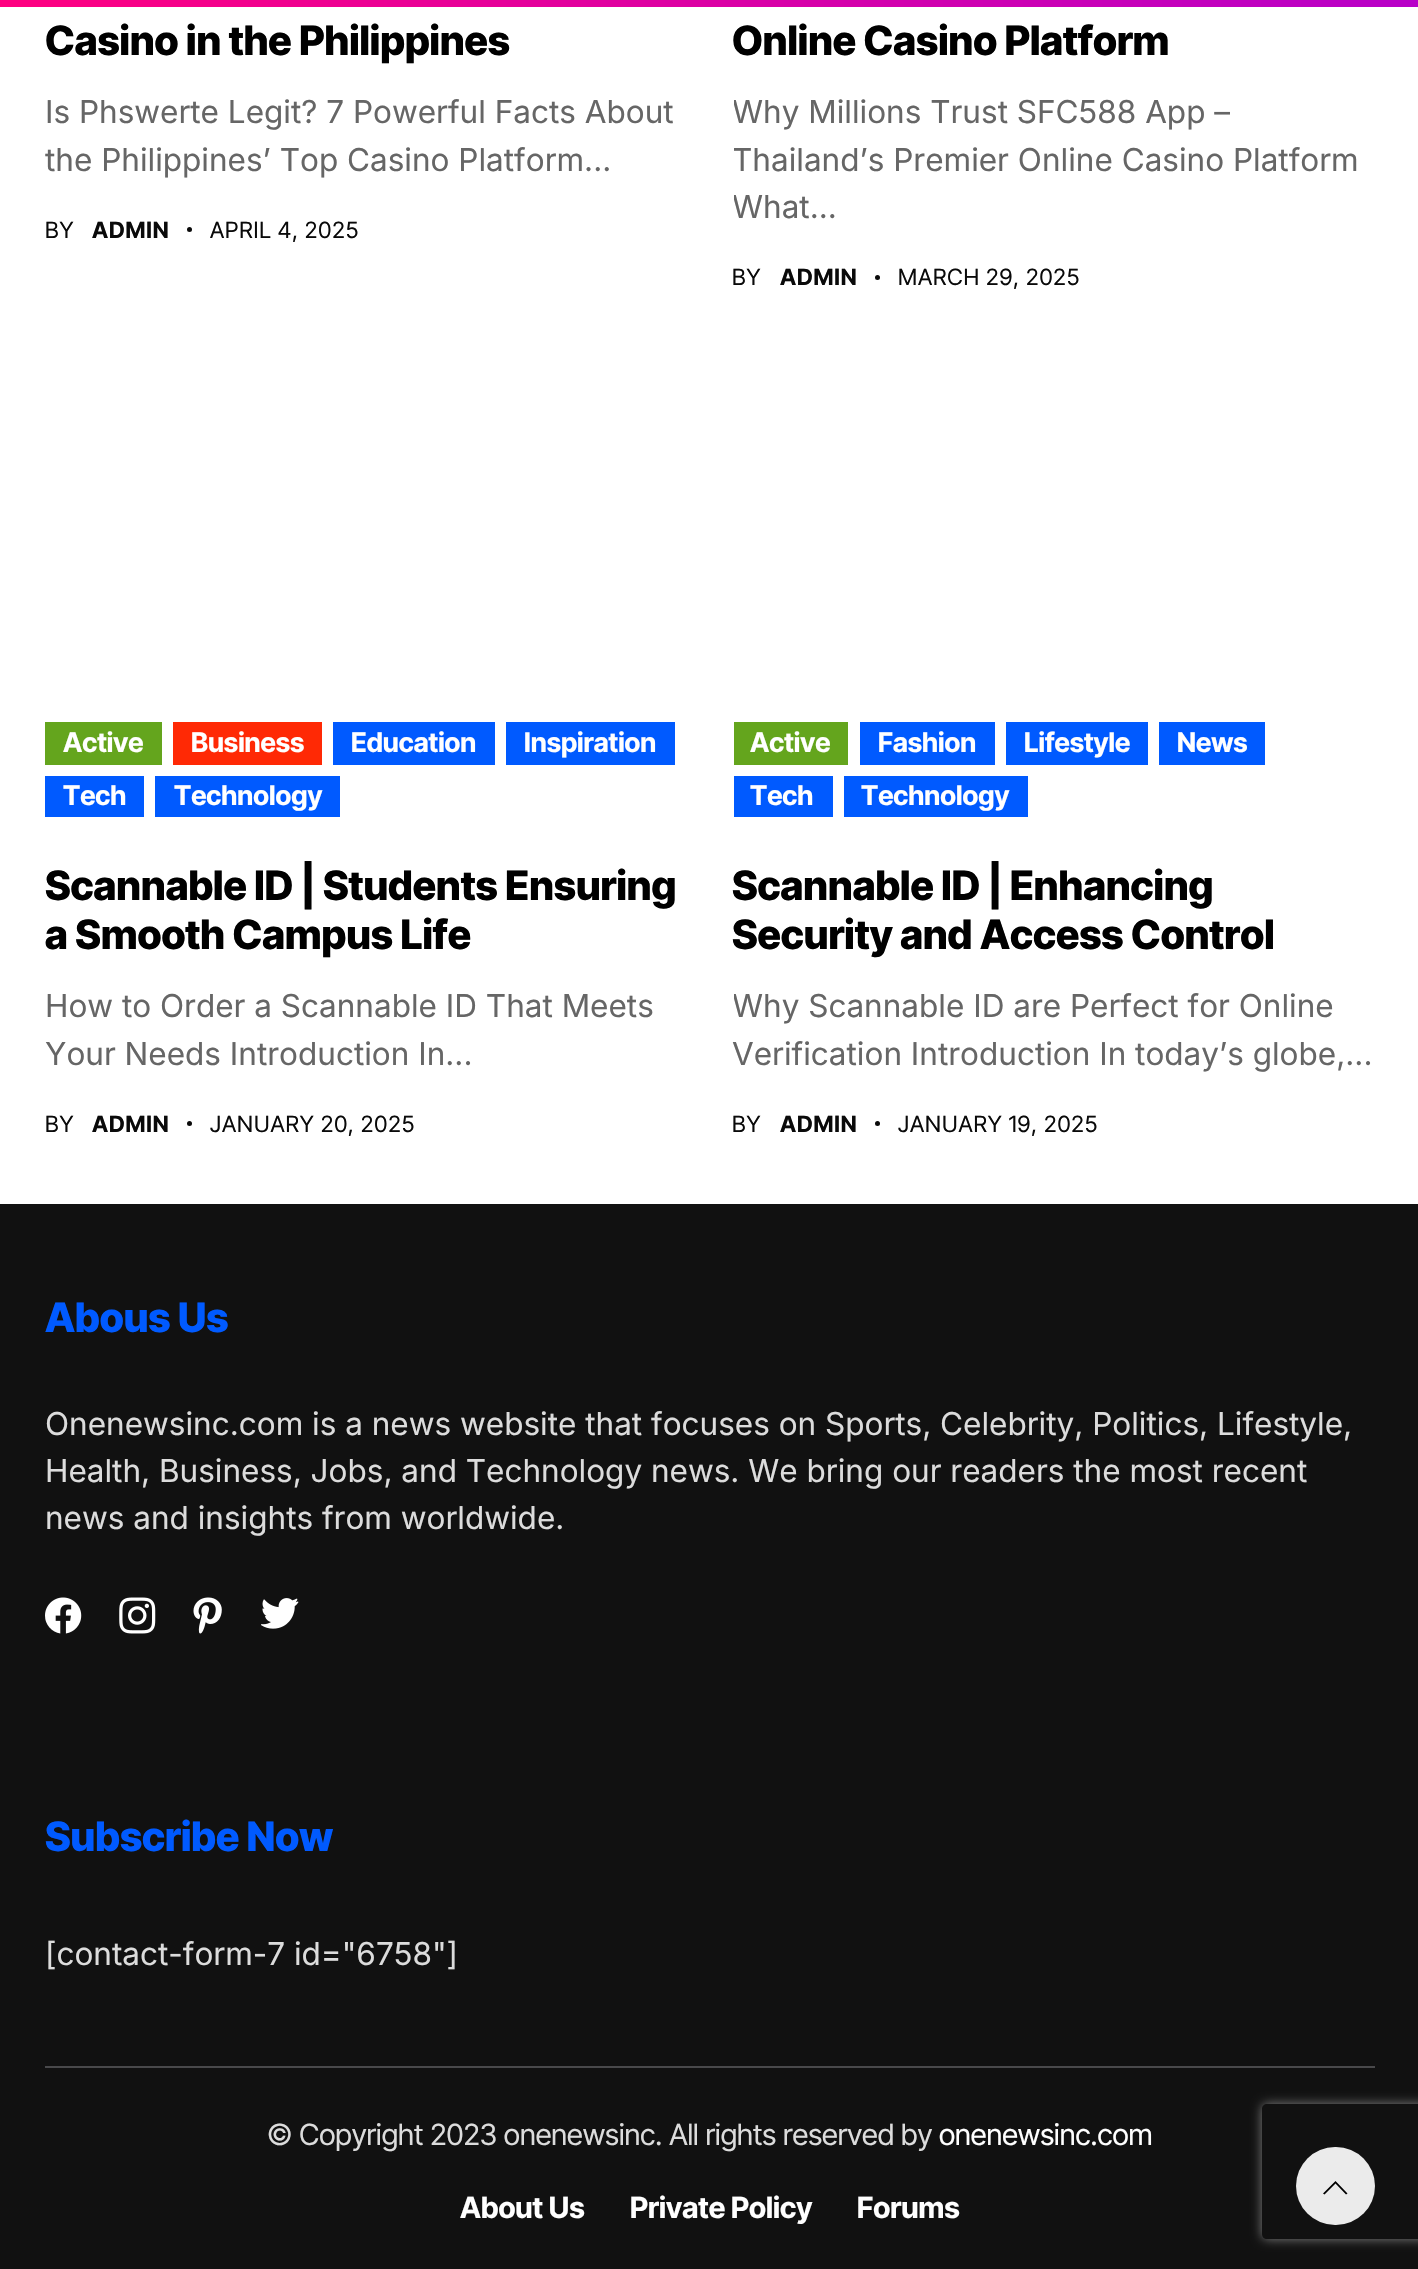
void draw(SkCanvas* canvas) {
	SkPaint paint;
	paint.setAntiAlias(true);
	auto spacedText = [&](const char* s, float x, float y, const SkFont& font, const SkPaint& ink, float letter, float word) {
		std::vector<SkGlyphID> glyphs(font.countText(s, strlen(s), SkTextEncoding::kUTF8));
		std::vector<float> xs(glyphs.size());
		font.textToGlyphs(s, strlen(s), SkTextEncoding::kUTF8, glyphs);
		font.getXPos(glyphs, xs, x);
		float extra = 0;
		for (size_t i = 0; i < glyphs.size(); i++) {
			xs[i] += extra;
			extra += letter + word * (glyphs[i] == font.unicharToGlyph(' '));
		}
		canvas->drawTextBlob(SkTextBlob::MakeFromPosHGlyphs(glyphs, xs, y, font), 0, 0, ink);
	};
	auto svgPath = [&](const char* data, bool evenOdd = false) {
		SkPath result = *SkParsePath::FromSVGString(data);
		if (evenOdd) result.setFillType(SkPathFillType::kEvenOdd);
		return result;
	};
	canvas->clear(0xffffffff);
	{
		const SkColor colors[] = {0xffff0080, 0xff8100ff};
		const float stops[] = {0, 1};
		const SkPoint ends[] = {{0, 3.4}, {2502, 3.4}};
		paint.setShader(SkGradientShader::MakeLinear(ends, colors, stops, 2, SkTileMode::kClamp));
		paint.setAlpha(255);
	}
	canvas->drawRect(SkRect::MakeXYWH(0, 0, 1418, 7), paint);
	SkFont f1(fontMgr->matchFamilyStyle("Inter Tight", SkFontStyle(800, SkFontStyle::kNormal_Width, SkFontStyle::kUpright_Slant)), 40.5);
	f1.setSubpixel(true);
	paint.setShader(nullptr);
	paint.setColor(0xff000000);
	canvas->drawString("Casino in the Philippines", 45, 55, f1, paint);
	SkFont f2(fontMgr->matchFamilyStyle("Inter", SkFontStyle::Normal()), 31.5);
	f2.setSubpixel(true);
	paint.setColor(0xff666666);
	canvas->drawString("Is Phswerte Legit? 7 Powerful Facts About", 45, 123, f2, paint);
	canvas->drawString("the Philippines’ Top Casino Platform...", 45, 171, f2, paint);
	SkFont f3(fontMgr->matchFamilyStyle("Inter Tight", SkFontStyle::Normal()), 22.5);
	f3.setSubpixel(true);
	paint.setColor(0xff0a0a0a);
	spacedText("BY", 45, 238, f3, paint, 0.9, 0);
	SkFont f4(fontMgr->matchFamilyStyle("Inter Tight", SkFontStyle::Bold()), 22.5);
	f4.setSubpixel(true);
	spacedText("ADMIN", 92, 238, f4, paint, 0.9, 0);
	canvas->drawCircle(189.5, 229.5, 2.5, paint);
	spacedText("APRIL 4, 2025", 210, 238, f3, paint, 0.9, 0);
	paint.setColor(0xff000000);
	canvas->drawString("Online Casino Platform", 732, 55, f1, paint);
	canvas->save();
	canvas->clipRect(SkRect::MakeXYWH(734, 88, 641, 142));
	paint.setColor(0xff666666);
	canvas->drawString("Why Millions Trust SFC588 App –", 732, 123, f2, paint);
	canvas->drawString("Thailand’s Premier Online Casino Platform", 732, 171, f2, paint);
	canvas->drawString("What...", 732, 218, f2, paint);
	canvas->restore();
	paint.setColor(0xff0a0a0a);
	spacedText("BY", 732, 285, f3, paint, 0.9, 0);
	spacedText("ADMIN", 780, 285, f4, paint, 0.9, 0);
	canvas->drawCircle(877.5, 277.5, 2.5, paint);
	spacedText("MARCH 29, 2025", 898, 285, f3, paint, 0.9, 0);
	paint.setColor(0xff64a51d);
	canvas->drawRect(SkRect::MakeXYWH(45, 722, 117, 43), paint);
	SkFont f5(fontMgr->matchFamilyStyle("Inter Tight", SkFontStyle::Bold()), 27);
	f5.setSubpixel(true);
	paint.setColor(0xffffffff);
	canvas->drawString("Active", 63, 752, f5, paint);
	paint.setColor(0xffff2905);
	canvas->drawRect(SkRect::MakeXYWH(173, 722, 149, 43), paint);
	paint.setColor(0xffffffff);
	canvas->drawString("Business", 191, 752, f5, paint);
	paint.setColor(0xff005aff);
	canvas->drawRect(SkRect::MakeXYWH(333, 722, 162, 43), paint);
	paint.setColor(0xffffffff);
	canvas->drawString("Education", 351, 752, f5, paint);
	paint.setColor(0xff005aff);
	canvas->drawRect(SkRect::MakeXYWH(506, 722, 169, 43), paint);
	paint.setColor(0xffffffff);
	canvas->drawString("Inspiration", 524, 752, f5, paint);
	paint.setColor(0xff005aff);
	canvas->drawRect(SkRect::MakeXYWH(45, 776, 99, 41), paint);
	paint.setColor(0xffffffff);
	canvas->drawString("Tech", 63, 805, f5, paint);
	paint.setColor(0xff005aff);
	canvas->drawRect(SkRect::MakeXYWH(155, 776, 185, 41), paint);
	paint.setColor(0xffffffff);
	canvas->drawString("Technology", 174, 805, f5, paint);
	paint.setColor(0xff000000);
	canvas->drawString("Scannable ID | Students Ensuring", 45, 900, f1, paint);
	canvas->drawString("a Smooth Campus Life", 45, 949, f1, paint);
	paint.setColor(0xff666666);
	canvas->drawString("How to Order a Scannable ID That Meets", 45, 1017, f2, paint);
	canvas->drawString("Your Needs Introduction In...", 45, 1065, f2, paint);
	paint.setColor(0xff0a0a0a);
	spacedText("BY", 45, 1132, f3, paint, 0.9, 0);
	spacedText("ADMIN", 92, 1132, f4, paint, 0.9, 0);
	canvas->drawCircle(189.5, 1123.5, 2.5, paint);
	spacedText("JANUARY 20, 2025", 210, 1132, f3, paint, 0.9, 0);
	paint.setColor(0xff64a51d);
	canvas->drawRect(SkRect::MakeXYWH(734, 722, 114, 43), paint);
	paint.setColor(0xffffffff);
	canvas->drawString("Active", 750, 752, f5, paint);
	paint.setColor(0xff005aff);
	canvas->drawRect(SkRect::MakeXYWH(860, 722, 135, 43), paint);
	paint.setColor(0xffffffff);
	canvas->drawString("Fashion", 878, 752, f5, paint);
	paint.setColor(0xff005aff);
	canvas->drawRect(SkRect::MakeXYWH(1006, 722, 142, 43), paint);
	paint.setColor(0xffffffff);
	canvas->drawString("Lifestyle", 1024, 752, f5, paint);
	paint.setColor(0xff005aff);
	canvas->drawRect(SkRect::MakeXYWH(1159, 722, 106, 43), paint);
	paint.setColor(0xffffffff);
	canvas->drawString("News", 1177, 752, f5, paint);
	paint.setColor(0xff005aff);
	canvas->drawRect(SkRect::MakeXYWH(734, 776, 99, 41), paint);
	paint.setColor(0xffffffff);
	canvas->drawString("Tech", 750, 805, f5, paint);
	paint.setColor(0xff005aff);
	canvas->drawRect(SkRect::MakeXYWH(844, 776, 184, 41), paint);
	paint.setColor(0xffffffff);
	canvas->drawString("Technology", 861, 805, f5, paint);
	paint.setColor(0xff000000);
	canvas->drawString("Scannable ID | Enhancing", 732, 900, f1, paint);
	canvas->drawString("Security and Access Control", 732, 949, f1, paint);
	canvas->save();
	canvas->clipRect(SkRect::MakeXYWH(734, 981, 641, 95));
	paint.setColor(0xff666666);
	canvas->drawString("Why Scannable ID are Perfect for Online", 732, 1017, f2, paint);
	canvas->restore();
	canvas->drawString("Verification Introduction In today’s globe,...", 732, 1065, f2, paint);
	paint.setColor(0xff0a0a0a);
	spacedText("BY", 732, 1132, f3, paint, 0.9, 0);
	spacedText("ADMIN", 780, 1132, f4, paint, 0.9, 0);
	canvas->drawCircle(877.5, 1123.5, 2.5, paint);
	spacedText("JANUARY 19, 2025", 898, 1132, f3, paint, 0.9, 0);
	paint.setColor(0xff111111);
	canvas->drawRect(SkRect::MakeXYWH(0, 1204, 1418, 1065), paint);
	paint.setColor(0xff005aff);
	canvas->drawString("Abous Us", 45, 1332, f1, paint);
	paint.setColor(0xffdcdcdc);
	canvas->drawString("Onenewsinc.com is a news website that focuses on Sports, Celebrity, Politics, Lifestyle,", 45, 1435, f2, paint);
	canvas->drawString("Health, Business, Jobs, and Technology news. We bring our readers the most recent", 45, 1482, f2, paint);
	canvas->drawString("news and insights from worldwide.", 45, 1529, f2, paint);
	canvas->drawImageRect(SkImages::DeferredFromEncodedData(SkData::MakeFromFileName("img1.png")), SkRect::MakeXYWH(45, 1597, 37, 37), SkSamplingOptions());
	canvas->drawImageRect(SkImages::DeferredFromEncodedData(SkData::MakeFromFileName("img2.png")), SkRect::MakeXYWH(119, 1597, 37, 37), SkSamplingOptions());
	canvas->drawImageRect(SkImages::DeferredFromEncodedData(SkData::MakeFromFileName("img3.png")), SkRect::MakeXYWH(193, 1597, 29, 37), SkSamplingOptions());
	canvas->drawImageRect(SkImages::DeferredFromEncodedData(SkData::MakeFromFileName("img4.png")), SkRect::MakeXYWH(261, 1598, 38, 31), SkSamplingOptions());
	paint.setColor(0xff005aff);
	canvas->drawString("Subscribe Now", 45, 1851, f1, paint);
	paint.setColor(0xffdcdcdc);
	canvas->drawString("[contact-form-7 id=\"6758\"]", 45, 1965, f2, paint);
	paint.setColor(0xff49494b);
	canvas->drawRect(SkRect::MakeXYWH(45, 2066, 1330, 2), paint);
	SkFont f6(fontMgr->matchFamilyStyle("Inter Tight", SkFontStyle::Normal()), 29.25);
	f6.setSubpixel(true);
	paint.setColor(0xffdcdcdc);
	canvas->drawString("© Copyright 2023 onenewsinc. All rights reserved by", 267, 2145, f6, paint);
	paint.setColor(0xffffffff);
	canvas->drawString("onenewsinc.com", 939, 2145, f6, paint);
	SkFont f7(fontMgr->matchFamilyStyle("Inter Tight", SkFontStyle::Bold()), 29.25);
	f7.setSubpixel(true);
	canvas->drawString("About Us", 460, 2218, f7, paint);
	canvas->drawString("Private Policy", 630, 2218, f7, paint);
	canvas->drawString("Forums", 857, 2218, f7, paint);
	canvas->save();
	canvas->clipPath(svgPath("M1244 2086H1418V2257H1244ZM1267 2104H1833C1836 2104 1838 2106 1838 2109V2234C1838 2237 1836 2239 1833 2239H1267C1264 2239 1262 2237 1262 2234V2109C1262 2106 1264 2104 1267 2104Z", true), true);
	paint.setColor(0xff808080);
	paint.setMaskFilter(SkMaskFilter::MakeBlur(kNormal_SkBlurStyle, 5.5));
	canvas->drawRoundRect(SkRect::MakeXYWH(1262, 2104, 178, 135), 5, 5, paint);
	paint.setMaskFilter(nullptr);
	canvas->restore();
	paint.setColor(0xffebebeb);
	canvas->drawRoundRect(SkRect::MakeXYWH(1296, 2147, 79, 78), 39, 39, paint);
	paint.setColor(0xff000000);
	canvas->drawPath(svgPath("M1335.5 2181L1323 2193.5L1324.5 2194.5L1335.5 2183.5L1346 2194.5L1347.5 2193.5Z"), paint);
}
